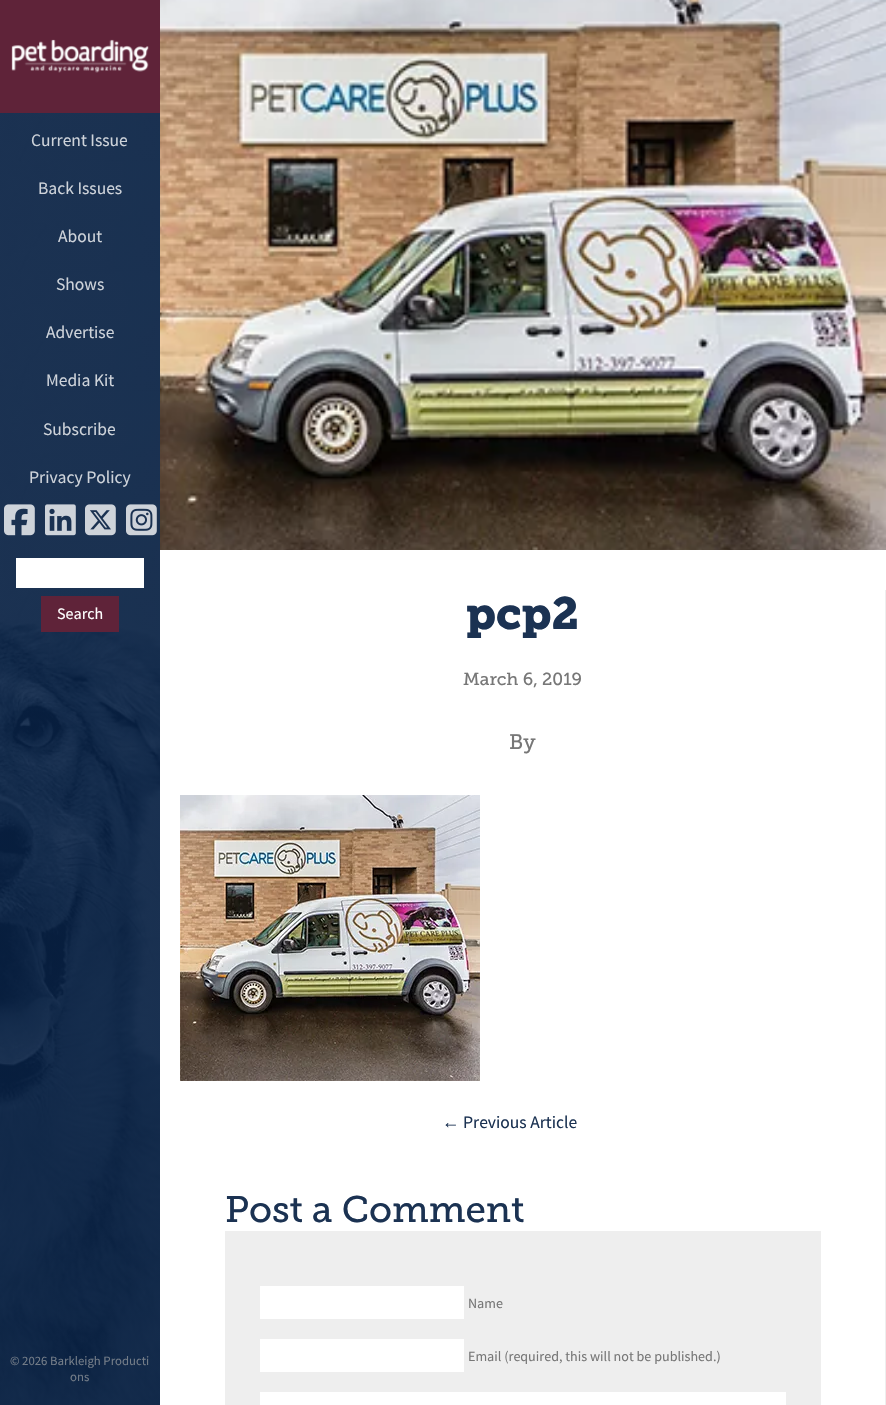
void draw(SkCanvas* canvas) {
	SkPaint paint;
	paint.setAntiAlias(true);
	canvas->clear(0xffffffff);
	canvas->drawImageRect(SkImages::DeferredFromEncodedData(SkData::MakeFromFileName("img1.png")), SkRect::MakeXYWH(0, 113, 160, 1292), SkSamplingOptions());
	paint.setColor(0xff5f2339);
	canvas->drawRect(SkRect::MakeXYWH(0, 0, 160, 113), paint);
	canvas->drawImageRect(SkImages::DeferredFromEncodedData(SkData::MakeFromFileName("img2.png")), SkRect::MakeXYWH(11, 39, 138, 34), SkSamplingOptions());
	SkFont f1(fontMgr->matchFamilyStyle("Source Sans Pro", SkFontStyle::Normal()), 17.5);
	f1.setSubpixel(true);
	paint.setColor(0xffced3da);
	canvas->drawString("Current Issue", 31, 146, f1, paint);
	canvas->drawString("Back Issues", 38, 194, f1, paint);
	canvas->drawString("About", 58, 242, f1, paint);
	canvas->drawString("Shows", 56, 290, f1, paint);
	canvas->drawString("Advertise", 46, 338, f1, paint);
	canvas->drawString("Media Kit", 46, 386, f1, paint);
	canvas->drawString("Subscribe", 43, 435, f1, paint);
	canvas->drawString("Privacy Policy", 29, 483, f1, paint);
	canvas->drawImageRect(SkImages::DeferredFromEncodedData(SkData::MakeFromFileName("img3.png")), SkRect::MakeXYWH(4, 504, 31, 32), SkSamplingOptions());
	canvas->drawImageRect(SkImages::DeferredFromEncodedData(SkData::MakeFromFileName("img4.png")), SkRect::MakeXYWH(45, 504, 31, 32), SkSamplingOptions());
	canvas->drawImageRect(SkImages::DeferredFromEncodedData(SkData::MakeFromFileName("img5.png")), SkRect::MakeXYWH(85, 504, 31, 32), SkSamplingOptions());
	canvas->drawImageRect(SkImages::DeferredFromEncodedData(SkData::MakeFromFileName("img6.png")), SkRect::MakeXYWH(126, 504, 31, 32), SkSamplingOptions());
	paint.setColor(0xffffffff);
	canvas->drawRect(SkRect::MakeXYWH(16, 558, 128, 30), paint);
	paint.setColor(0xff5f2339);
	canvas->drawRect(SkRect::MakeXYWH(41, 596, 78, 36), paint);
	SkFont f2(fontMgr->matchFamilyStyle("Source Sans Pro", SkFontStyle::Normal()), 16);
	f2.setSubpixel(true);
	paint.setColor(0xffffffff);
	canvas->drawString("Search", 57, 619, f2, paint);
	SkFont f3(fontMgr->matchFamilyStyle("Source Sans Pro", SkFontStyle::Normal()), 12.75);
	f3.setSubpixel(true);
	paint.setColor(0xff747d88);
	canvas->drawString("© 2026 Barkleigh Producti", 10, 1365, f3, paint);
	canvas->drawString("ons", 70, 1381, f3, paint);
	canvas->drawImageRect(SkImages::DeferredFromEncodedData(SkData::MakeFromFileName("img7.png")), SkRect::MakeXYWH(160, 0, 726, 550), SkSamplingOptions());
	paint.setColor(0xffeeeeee);
	canvas->drawRect(SkRect::MakeXYWH(885, 590, 1, 815), paint);
	SkFont f4(fontMgr->matchFamilyStyle("Museo Slab", SkFontStyle::Bold()), 45);
	f4.setSubpixel(true);
	paint.setColor(0xff1b3252);
	canvas->drawString("pcp2", 466, 629, f4, paint);
	SkFont f5(fontMgr->matchFamilyStyle("Museo Slab", SkFontStyle::Normal()), 17.5);
	f5.setSubpixel(true);
	paint.setColor(0xff777777);
	canvas->drawString("March 6, 2019", 463, 685, f5, paint);
	SkFont f6(fontMgr->matchFamilyStyle("Museo Slab", SkFontStyle::Normal()), 21);
	f6.setSubpixel(true);
	canvas->drawString("By", 509, 749, f6, paint);
	canvas->drawImageRect(SkImages::DeferredFromEncodedData(SkData::MakeFromFileName("img8.png")), SkRect::MakeXYWH(180, 795, 300, 286), SkSamplingOptions());
	SkFont f7(fontMgr->matchFamilyStyle("Liberation Sans", SkFontStyle::Normal()), 17.5);
	f7.setSubpixel(true);
	paint.setColor(0xff1b3252);
	canvas->drawString("←", 442, 1128, f7, paint);
	canvas->drawString("Previous Article", 463, 1128, f1, paint);
	SkFont f8(fontMgr->matchFamilyStyle("Museo Slab", SkFontStyle::Normal()), 36.75);
	f8.setSubpixel(true);
	canvas->drawString("Post a Comment", 225, 1222, f8, paint);
	paint.setColor(0xffeeeeee);
	canvas->drawRect(SkRect::MakeXYWH(225, 1231, 596, 174), paint);
	paint.setColor(0xffffffff);
	canvas->drawRect(SkRect::MakeXYWH(260, 1286, 204, 33), paint);
	SkFont f9(fontMgr->matchFamilyStyle("Source Sans Pro", SkFontStyle::Normal()), 14.1);
	f9.setSubpixel(true);
	paint.setColor(0xff777777);
	canvas->drawString("Name", 468, 1308, f9, paint);
	paint.setColor(0xffffffff);
	canvas->drawRect(SkRect::MakeXYWH(260, 1339, 204, 33), paint);
	paint.setColor(0xff777777);
	canvas->drawString("Email (required, this will not be published.)", 468, 1361, f9, paint);
	paint.setColor(0xffffffff);
	canvas->drawRect(SkRect::MakeXYWH(260, 1392, 526, 13), paint);
}
